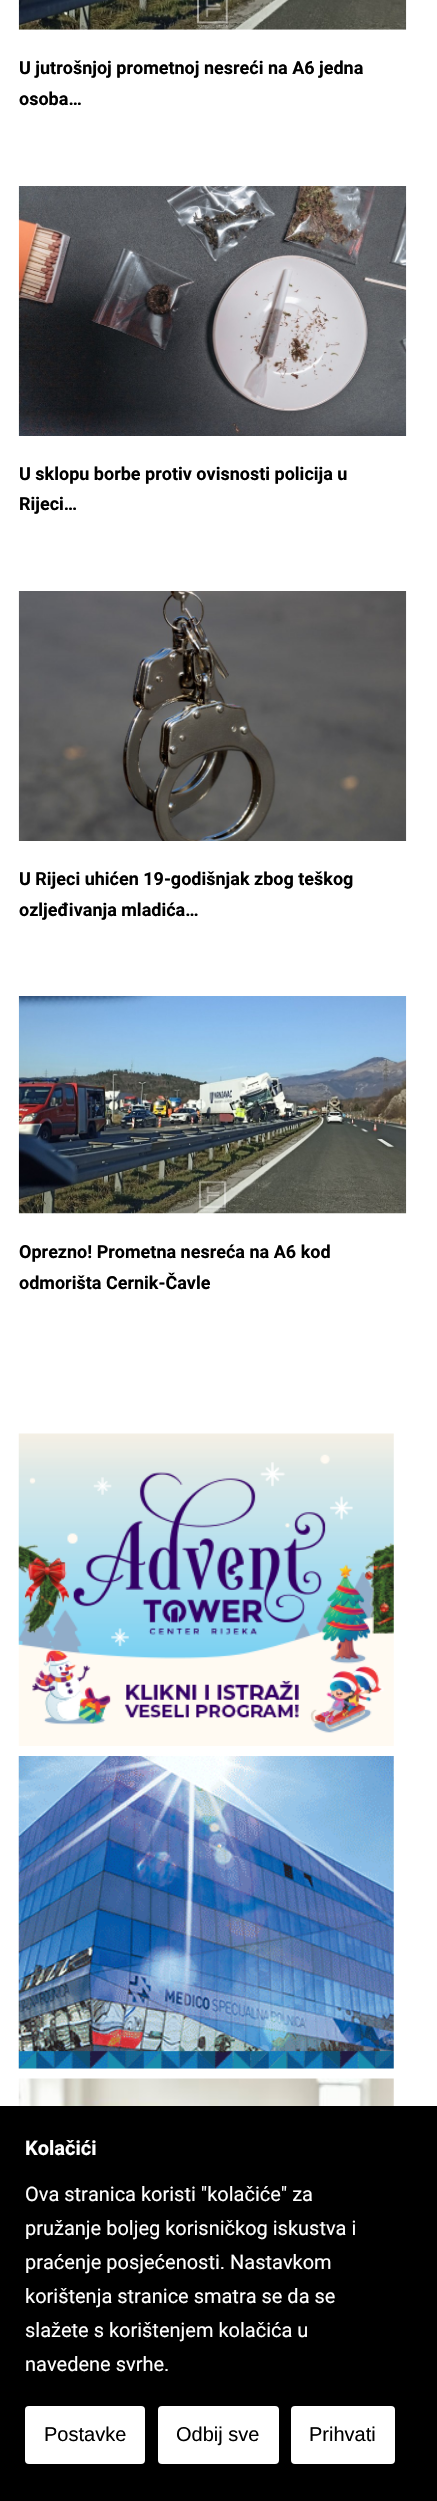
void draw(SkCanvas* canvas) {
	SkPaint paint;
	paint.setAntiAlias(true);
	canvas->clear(0xffffffff);
	canvas->drawImageRect(SkImages::DeferredFromEncodedData(SkData::MakeFromFileName("img1.png")), SkRect::MakeXYWH(18, 0, 389, 30), SkSamplingOptions());
	SkFont f1(fontMgr->matchFamilyStyle("Roboto", SkFontStyle::Bold()), 18);
	f1.setSubpixel(true);
	paint.setColor(0xff000000);
	canvas->drawString("U jutrošnjoj prometnoj nesreći na A6 jedna", 19, 74, f1, paint);
	canvas->drawString("osoba…", 19, 105, f1, paint);
	canvas->drawImageRect(SkImages::DeferredFromEncodedData(SkData::MakeFromFileName("img2.png")), SkRect::MakeXYWH(18, 186, 389, 250), SkSamplingOptions());
	canvas->drawString("U sklopu borbe protiv ovisnosti policija u", 19, 480, f1, paint);
	canvas->drawString("Rijeci…", 19, 510, f1, paint);
	canvas->drawImageRect(SkImages::DeferredFromEncodedData(SkData::MakeFromFileName("img3.png")), SkRect::MakeXYWH(18, 591, 389, 250), SkSamplingOptions());
	canvas->drawString("U Rijeci uhićen 19-godišnjak zbog teškog", 19, 885, f1, paint);
	canvas->drawString("ozljeđivanja mladića…", 19, 916, f1, paint);
	canvas->drawImageRect(SkImages::DeferredFromEncodedData(SkData::MakeFromFileName("img4.png")), SkRect::MakeXYWH(18, 996, 389, 218), SkSamplingOptions());
	canvas->drawString("Oprezno! Prometna nesreća na A6 kod", 19, 1258, f1, paint);
	canvas->drawString("odmorišta Cernik-Čavle", 19, 1289, f1, paint);
	canvas->drawImageRect(SkImages::DeferredFromEncodedData(SkData::MakeFromFileName("img5.png")), SkRect::MakeXYWH(18, 1433, 376, 313), SkSamplingOptions());
	canvas->drawImageRect(SkImages::DeferredFromEncodedData(SkData::MakeFromFileName("img6.png")), SkRect::MakeXYWH(18, 1756, 376, 313), SkSamplingOptions());
	canvas->drawImageRect(SkImages::DeferredFromEncodedData(SkData::MakeFromFileName("img7.png")), SkRect::MakeXYWH(18, 2078, 376, 28), SkSamplingOptions());
	canvas->drawRect(SkRect::MakeXYWH(0, 2106, 437, 395), paint);
	SkFont f2(fontMgr->matchFamilyStyle("Roboto", SkFontStyle::Bold()), 20);
	f2.setSubpixel(true);
	paint.setColor(0xffffffff);
	canvas->drawString("Kolačići", 25, 2155, f2, paint);
	SkFont f3(fontMgr->matchFamilyStyle("Roboto", SkFontStyle::Normal()), 20);
	f3.setSubpixel(true);
	canvas->drawString("Ova stranica koristi \"kolačiće\" za", 25, 2201, f3, paint);
	canvas->drawString("pružanje boljeg korisničkog iskustva i", 25, 2235, f3, paint);
	canvas->drawString("praćenje posjećenosti. Nastavkom", 25, 2269, f3, paint);
	canvas->drawString("korištenja stranice smatra se da se", 25, 2303, f3, paint);
	canvas->drawString("slažete s korištenjem kolačića u", 25, 2337, f3, paint);
	canvas->drawString("navedene svrhe.", 25, 2371, f3, paint);
	canvas->drawRoundRect(SkRect::MakeXYWH(25, 2406, 120, 58), 4, 4, paint);
	SkFont f4(fontMgr->matchFamilyStyle("Liberation Sans", SkFontStyle::Normal()), 20);
	f4.setSubpixel(true);
	paint.setColor(0xff000000);
	canvas->drawString("Postavke", 44, 2441, f4, paint);
	paint.setColor(0xffffffff);
	canvas->drawRoundRect(SkRect::MakeXYWH(158, 2406, 121, 58), 4, 4, paint);
	paint.setColor(0xff000000);
	canvas->drawString("Odbij sve", 176, 2441, f4, paint);
	paint.setColor(0xffffffff);
	canvas->drawRoundRect(SkRect::MakeXYWH(291, 2406, 104, 58), 4, 4, paint);
	paint.setColor(0xff000000);
	canvas->drawString("Prihvati", 309, 2441, f4, paint);
}
